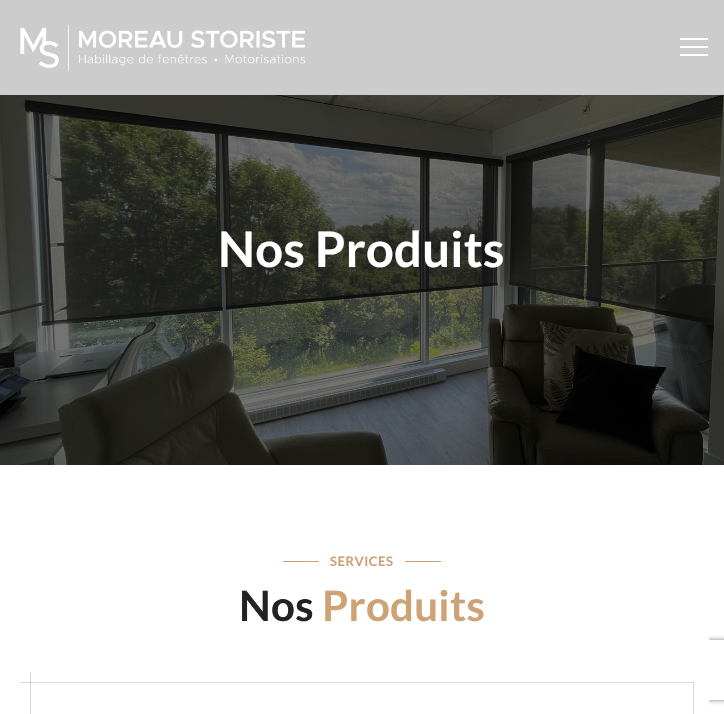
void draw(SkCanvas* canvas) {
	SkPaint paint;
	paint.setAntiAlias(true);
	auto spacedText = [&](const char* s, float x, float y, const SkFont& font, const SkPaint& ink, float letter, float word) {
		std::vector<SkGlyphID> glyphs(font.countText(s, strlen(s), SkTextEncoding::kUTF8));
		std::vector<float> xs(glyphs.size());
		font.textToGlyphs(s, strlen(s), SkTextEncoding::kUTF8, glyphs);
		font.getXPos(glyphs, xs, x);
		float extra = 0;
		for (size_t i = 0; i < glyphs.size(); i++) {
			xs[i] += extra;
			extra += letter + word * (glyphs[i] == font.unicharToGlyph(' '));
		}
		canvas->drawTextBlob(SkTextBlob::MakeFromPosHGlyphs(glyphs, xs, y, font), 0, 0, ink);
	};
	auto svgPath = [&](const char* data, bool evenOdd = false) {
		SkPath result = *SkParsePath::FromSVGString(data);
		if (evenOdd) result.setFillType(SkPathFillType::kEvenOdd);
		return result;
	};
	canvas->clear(0xffffffff);
	paint.setColor(0xffcccccc);
	canvas->drawRect(SkRect::MakeXYWH(0, 0, 724, 95), paint);
	canvas->drawImageRect(SkImages::DeferredFromEncodedData(SkData::MakeFromFileName("img1.png")), SkRect::MakeXYWH(20, 25, 286, 46), SkSamplingOptions());
	paint.setColor(0xffffffff);
	canvas->drawRect(SkRect::MakeXYWH(680, 46, 28, 2), paint);
	canvas->drawRect(SkRect::MakeXYWH(680, 38, 28, 2), paint);
	canvas->drawRect(SkRect::MakeXYWH(680, 54, 28, 2), paint);
	canvas->drawImageRect(SkImages::DeferredFromEncodedData(SkData::MakeFromFileName("img2.png")), SkRect::MakeXYWH(0, 95, 724, 370), SkSamplingOptions());
	SkFont f1(fontMgr->matchFamilyStyle("Lato", SkFontStyle::Bold()), 49);
	f1.setSubpixel(true);
	spacedText("Nos Produits", 218, 267, f1, paint, 0.25, 0);
	canvas->save();
	canvas->clipPath(svgPath("M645 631H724V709H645ZM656 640H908C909 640 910 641 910 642V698C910 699 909 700 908 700H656C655 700 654 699 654 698V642C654 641 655 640 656 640Z", true), true);
	paint.setColor(0xff808080);
	paint.setMaskFilter(SkMaskFilter::MakeBlur(kNormal_SkBlurStyle, 2.5));
	canvas->drawRoundRect(SkRect::MakeXYWH(654, 640, 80, 60), 2, 2, paint);
	paint.setMaskFilter(nullptr);
	canvas->restore();
	paint.setColor(0xffffffff);
	canvas->drawRect(SkRect::MakeXYWH(649, 635, 60, 70), paint);
	paint.setColor(0xffcda274);
	canvas->drawRect(SkRect::MakeXYWH(283, 561, 36, 1), paint);
	SkFont f2(fontMgr->matchFamilyStyle("Lato", SkFontStyle::Bold()), 13);
	f2.setSubpixel(true);
	spacedText("SERVICES", 330, 566, f2, paint, 0.5, 0);
	canvas->drawRect(SkRect::MakeXYWH(405, 561, 36, 1), paint);
	SkFont f3(fontMgr->matchFamilyStyle("Lato", SkFontStyle::Bold()), 42);
	f3.setSubpixel(true);
	paint.setColor(0xff232323);
	spacedText("Nos", 239, 621, f3, paint, 0.25, 0);
	paint.setColor(0xffcda274);
	spacedText("Produits", 322, 621, f3, paint, 0.25, 0);
	paint.setStroke(true);
	paint.setStrokeWidth(1);
	paint.setColor(0xffd9d9d9);
	canvas->drawRect(SkRect::MakeXYWH(30.5, 682.5, 663, 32), paint);
	paint.setStroke(false);
	paint.setColor(0x26000000);
	canvas->drawPath(svgPath("M31 672V683L30 682V672Z"), paint);
	canvas->drawPath(svgPath("M31 683H20V682H30Z"), paint);
}
